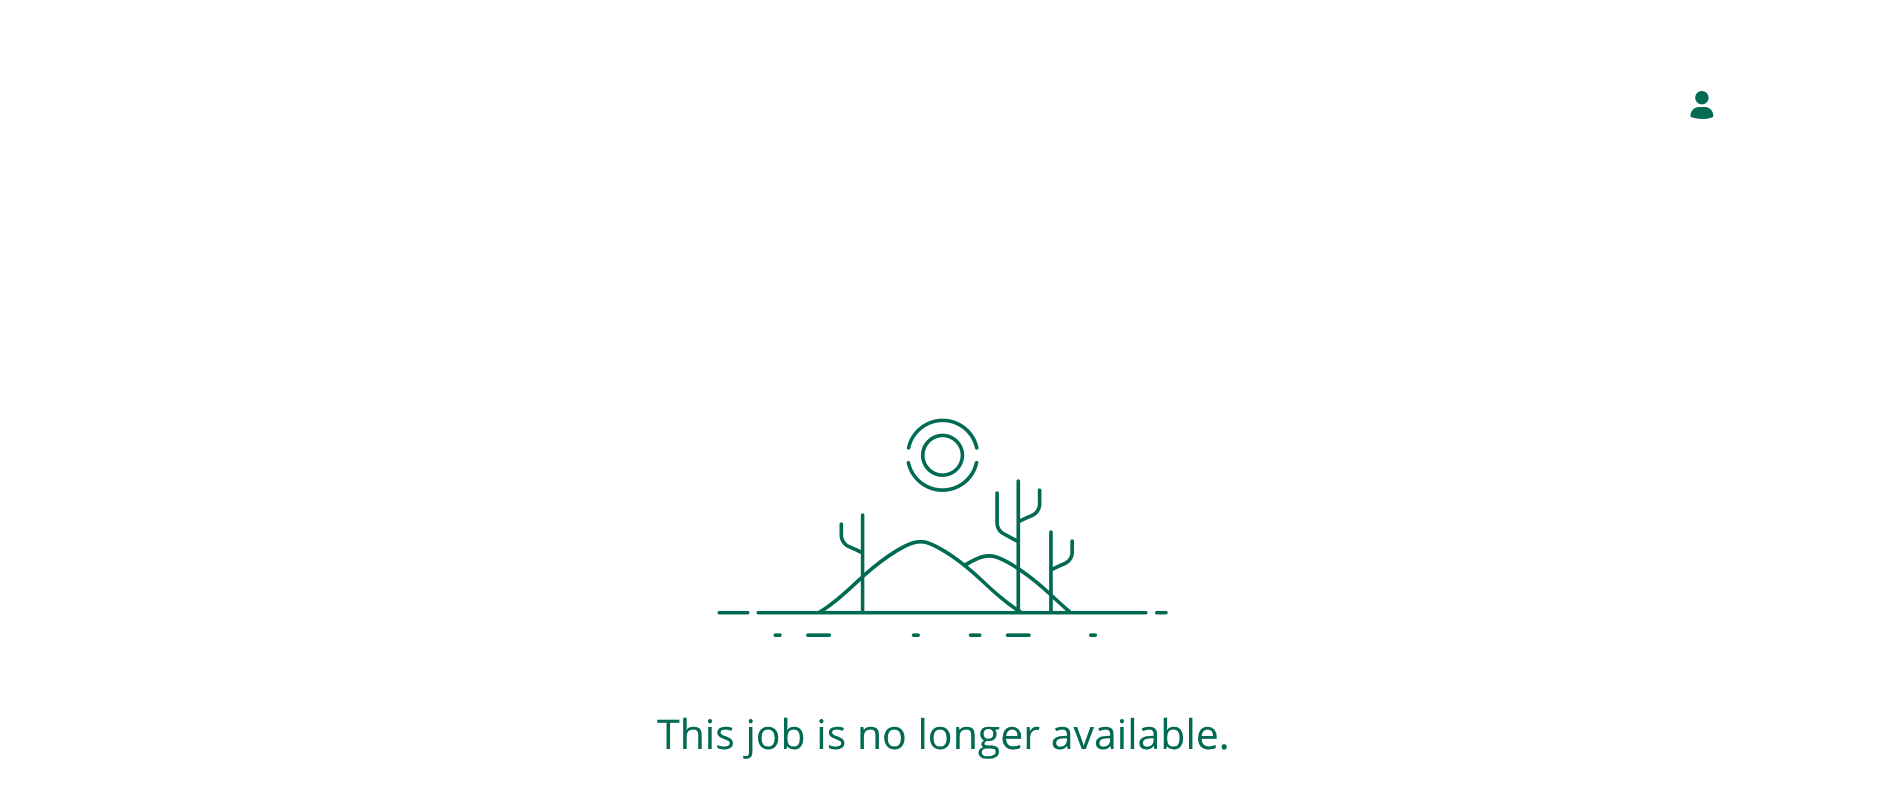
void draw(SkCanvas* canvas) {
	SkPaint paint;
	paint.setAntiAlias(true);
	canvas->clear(0xffffffff);
	canvas->drawImageRect(SkImages::DeferredFromEncodedData(SkData::MakeFromFileName("img1.png")), SkRect::MakeXYWH(1690, 91, 24, 28), SkSamplingOptions());
	canvas->drawImageRect(SkImages::DeferredFromEncodedData(SkData::MakeFromFileName("img2.png")), SkRect::MakeXYWH(717, 418, 451, 219), SkSamplingOptions());
	SkFont f1(fontMgr->matchFamilyStyle("Open Sans", SkFontStyle::Normal()), 41);
	f1.setSubpixel(true);
	paint.setColor(0xff006a52);
	canvas->drawString("This job is no longer available.", 657, 749, f1, paint);
}
